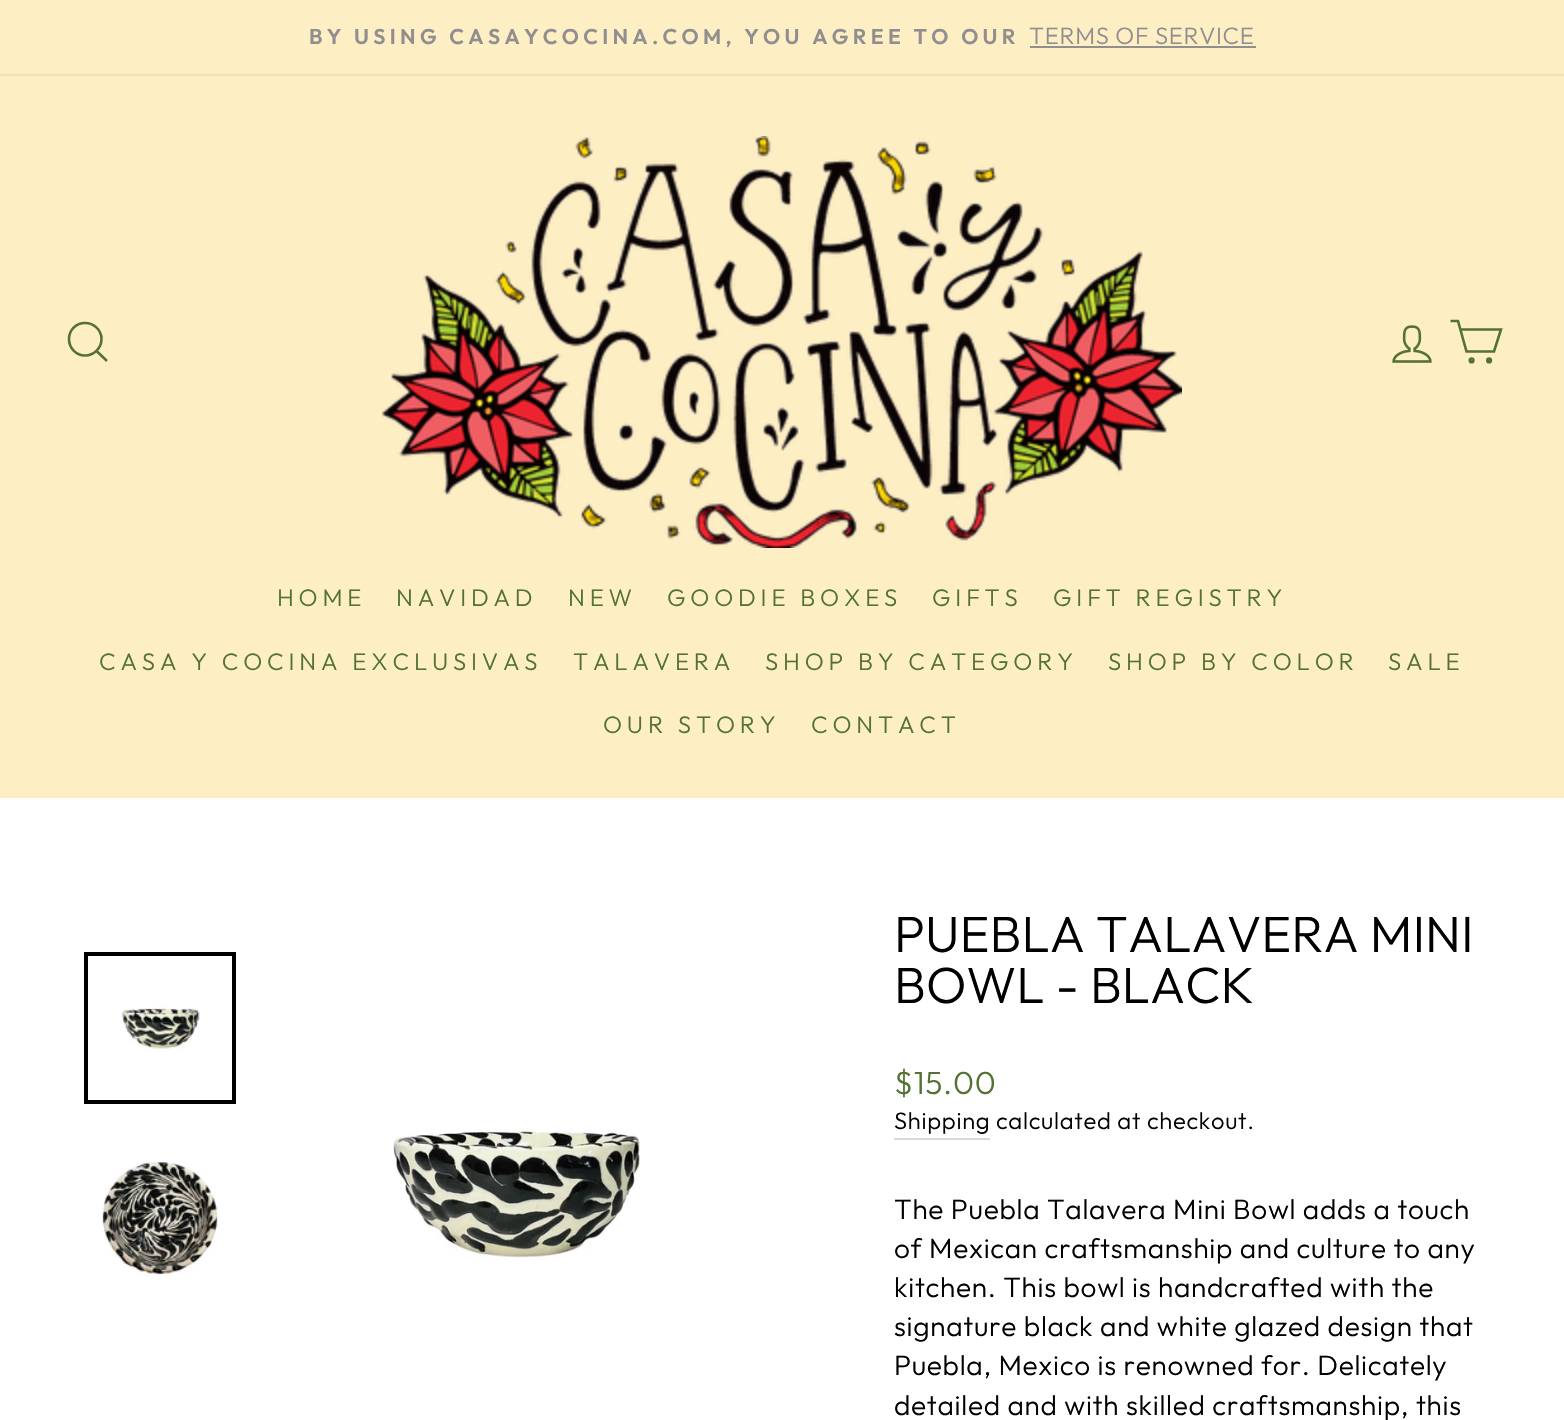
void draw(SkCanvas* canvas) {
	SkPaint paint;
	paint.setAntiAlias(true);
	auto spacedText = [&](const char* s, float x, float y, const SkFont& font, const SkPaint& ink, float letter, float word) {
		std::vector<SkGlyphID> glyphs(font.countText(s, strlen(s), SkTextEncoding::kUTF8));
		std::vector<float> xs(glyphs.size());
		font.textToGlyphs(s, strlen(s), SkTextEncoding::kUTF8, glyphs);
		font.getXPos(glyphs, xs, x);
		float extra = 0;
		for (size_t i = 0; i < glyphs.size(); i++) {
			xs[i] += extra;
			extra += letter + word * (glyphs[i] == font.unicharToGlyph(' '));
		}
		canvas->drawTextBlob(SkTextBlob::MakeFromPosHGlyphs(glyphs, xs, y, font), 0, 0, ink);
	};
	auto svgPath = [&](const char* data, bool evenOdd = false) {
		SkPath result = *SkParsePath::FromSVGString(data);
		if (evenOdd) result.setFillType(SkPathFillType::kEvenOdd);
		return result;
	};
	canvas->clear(0xffffffff);
	paint.setColor(0xfffeeec4);
	canvas->drawRect(SkRect::MakeXYWH(0, 0, 1564, 74), paint);
	SkFont f1(fontMgr->matchFamilyStyle("Outfit", SkFontStyle(600, SkFontStyle::kNormal_Width, SkFontStyle::kUpright_Slant)), 21.4);
	f1.setSubpixel(true);
	paint.setColor(0xff908e8e);
	spacedText("BY USING CASAYCOCINA.COM, YOU AGREE TO OUR", 309, 44, f1, paint, 4.3, 0);
	SkFont f2(fontMgr->matchFamilyStyle("Outfit", SkFontStyle(300, SkFontStyle::kNormal_Width, SkFontStyle::kUpright_Slant)), 23.75);
	f2.setSubpixel(true);
	spacedText("TERMS OF SERVICE", 1029, 44, f2, paint, 0.7, 0);
	canvas->drawRect(SkRect::MakeXYWH(1030, 46, 226, 2), paint);
	paint.setColor(0xfffeeec4);
	canvas->drawRect(SkRect::MakeXYWH(0, 76, 1564, 722), paint);
	paint.setColor(0xffede2b6);
	canvas->drawRect(SkRect::MakeXYWH(0, 74, 1564, 2), paint);
	paint.setStroke(true);
	paint.setStrokeWidth(2.6);
	paint.setColor(0xff537234);
	canvas->drawPath(svgPath("M101.5 339C101.5 348 94 355.5 85 355.5C76 355.5 69 348 69 339C69 330 76 323 85 323C94 323 101.5 330 101.5 339ZM107 361L96.5 351"), paint);
	canvas->drawImageRect(SkImages::DeferredFromEncodedData(SkData::MakeFromFileName("img1.png")), SkRect::MakeXYWH(382, 136, 800, 412), SkSamplingOptions());
	canvas->drawImageRect(SkImages::DeferredFromEncodedData(SkData::MakeFromFileName("img2.png")), SkRect::MakeXYWH(1392, 325, 40, 38), SkSamplingOptions());
	canvas->drawPath(svgPath("M1460 329.5H1501L1494 351.5H1466.5L1458 321H1450.5"), paint);
	paint.setStroke(false);
	canvas->drawCircle(1471.6, 360.4, 1.8, paint);
	paint.setStroke(true);
	canvas->drawCircle(1471.6, 360.4, 1.8, paint);
	paint.setStroke(false);
	canvas->drawCircle(1489.1, 360.4, 1.8, paint);
	paint.setStroke(true);
	canvas->drawCircle(1489.1, 360.4, 1.8, paint);
	SkFont f3(fontMgr->matchFamilyStyle("Outfit", SkFontStyle(300, SkFontStyle::kNormal_Width, SkFontStyle::kUpright_Slant)), 24);
	f3.setSubpixel(true);
	paint.setStroke(false);
	spacedText("HOME", 277, 606, f3, paint, 4.8, 0);
	spacedText("NAVIDAD", 396, 606, f3, paint, 4.8, 0);
	spacedText("NEW", 568, 606, f3, paint, 4.8, 0);
	spacedText("GOODIE BOXES", 667, 606, f3, paint, 4.8, 0);
	spacedText("GIFTS", 932, 606, f3, paint, 4.8, 0);
	spacedText("GIFT REGISTRY", 1053, 606, f3, paint, 4.8, 0);
	spacedText("CASA Y COCINA EXCLUSIVAS", 99, 670, f3, paint, 4.8, 0);
	spacedText("TALAVERA", 573, 670, f3, paint, 4.8, 0);
	spacedText("SHOP BY CATEGORY", 765, 670, f3, paint, 4.8, 0);
	spacedText("SHOP BY COLOR", 1108, 670, f3, paint, 4.8, 0);
	spacedText("SALE", 1388, 670, f3, paint, 4.8, 0);
	spacedText("OUR STORY", 603, 733, f3, paint, 4.8, 0);
	spacedText("CONTACT", 811, 733, f3, paint, 4.8, 0);
	canvas->drawImageRect(SkImages::DeferredFromEncodedData(SkData::MakeFromFileName("img3.png")), SkRect::MakeXYWH(120, 1007, 80, 46), SkSamplingOptions());
	paint.setStroke(true);
	paint.setStrokeWidth(4);
	paint.setColor(0xff000000);
	canvas->drawRect(SkRect::MakeXYWH(86, 954, 148, 148), paint);
	canvas->drawImageRect(SkImages::DeferredFromEncodedData(SkData::MakeFromFileName("img4.png")), SkRect::MakeXYWH(102, 1161, 119, 115), SkSamplingOptions());
	canvas->drawImageRect(SkImages::DeferredFromEncodedData(SkData::MakeFromFileName("img5.png")), SkRect::MakeXYWH(393, 1129, 248, 131), SkSamplingOptions());
	SkFont f4(fontMgr->matchFamilyStyle("Outfit", SkFontStyle(300, SkFontStyle::kNormal_Width, SkFontStyle::kUpright_Slant)), 51);
	f4.setSubpixel(true);
	paint.setStroke(false);
	canvas->drawString("PUEBLA TALAVERA MINI", 894, 952, f4, paint);
	canvas->drawString("BOWL - BLACK", 894, 1003, f4, paint);
	SkFont f5(fontMgr->matchFamilyStyle("Outfit", SkFontStyle(300, SkFontStyle::kNormal_Width, SkFontStyle::kUpright_Slant)), 32);
	f5.setSubpixel(true);
	paint.setColor(0xff537234);
	spacedText("$15.00", 894, 1094, f5, paint, 0.7, 0);
	paint.setColor(0xffd9d9d9);
	canvas->drawRect(SkRect::MakeXYWH(894, 1138, 96, 2), paint);
	paint.setColor(0xff000000);
	spacedText("Shipping", 894, 1129, f2, paint, 0.7, 0);
	spacedText("calculated at checkout.", 996, 1129, f2, paint, 0.7, 0);
	SkFont f6(fontMgr->matchFamilyStyle("Outfit", SkFontStyle(300, SkFontStyle::kNormal_Width, SkFontStyle::kUpright_Slant)), 28);
	f6.setSubpixel(true);
	spacedText("The Puebla Talavera Mini Bowl adds a touch", 894, 1219, f6, paint, 0.7, 0);
	spacedText("of Mexican craftsmanship and culture to any", 894, 1258, f6, paint, 0.7, 0);
	spacedText("kitchen. This bowl is handcrafted with the", 894, 1297, f6, paint, 0.7, 0);
	spacedText("signature black and white glazed design that", 894, 1336, f6, paint, 0.7, 0);
	spacedText("Puebla, Mexico is renowned for. Delicately", 894, 1375, f6, paint, 0.7, 0);
	spacedText("detailed and with skilled craftsmanship, this", 894, 1415, f6, paint, 0.7, 0);
}
